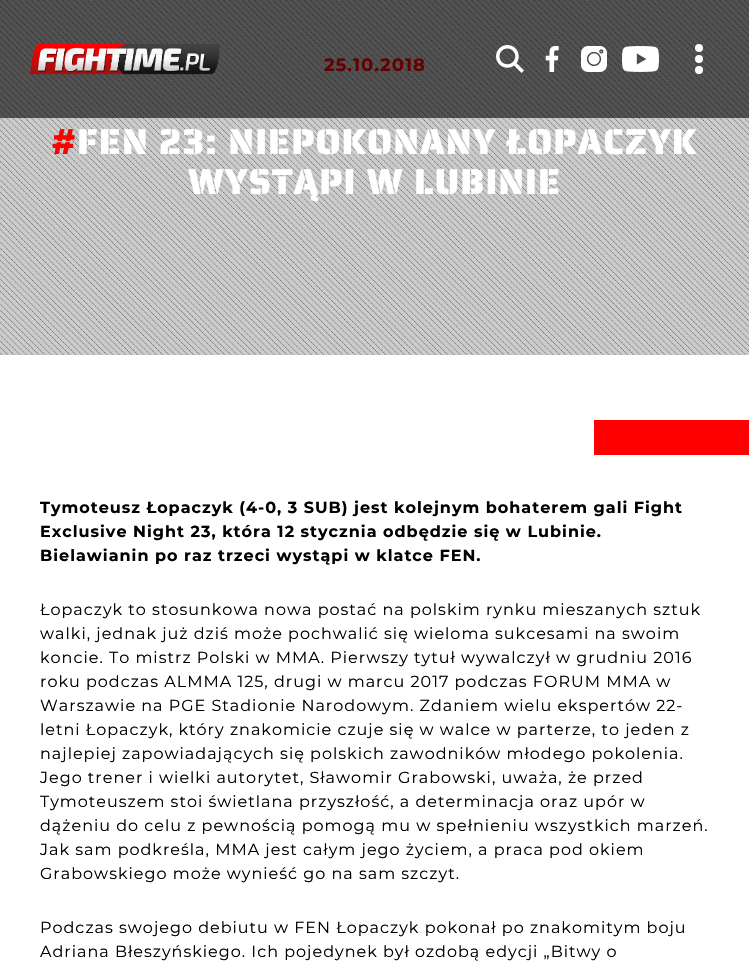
void draw(SkCanvas* canvas) {
	SkPaint paint;
	paint.setAntiAlias(true);
	auto spacedText = [&](const char* s, float x, float y, const SkFont& font, const SkPaint& ink, float letter, float word) {
		std::vector<SkGlyphID> glyphs(font.countText(s, strlen(s), SkTextEncoding::kUTF8));
		std::vector<float> xs(glyphs.size());
		font.textToGlyphs(s, strlen(s), SkTextEncoding::kUTF8, glyphs);
		font.getXPos(glyphs, xs, x);
		float extra = 0;
		for (size_t i = 0; i < glyphs.size(); i++) {
			xs[i] += extra;
			extra += letter + word * (glyphs[i] == font.unicharToGlyph(' '));
		}
		canvas->drawTextBlob(SkTextBlob::MakeFromPosHGlyphs(glyphs, xs, y, font), 0, 0, ink);
	};
	canvas->clear(0xffffffff);
	canvas->drawImageRect(SkImages::DeferredFromEncodedData(SkData::MakeFromFileName("img1.png")), SkRect::MakeXYWH(0, 0, 749, 355), SkSamplingOptions());
	SkFont f1(fontMgr->matchFamilyStyle("Montserrat", SkFontStyle::Bold()), 18);
	f1.setSubpixel(true);
	paint.setColor(0xffff0000);
	spacedText("25.10.2018", 324, 71, f1, paint, 1, 0);
	paint.setColor(0x99000000);
	canvas->drawRect(SkRect::MakeXYWH(0, 0, 749, 118), paint);
	canvas->drawImageRect(SkImages::DeferredFromEncodedData(SkData::MakeFromFileName("img2.png")), SkRect::MakeXYWH(30, 44, 190, 31), SkSamplingOptions());
	canvas->drawImageRect(SkImages::DeferredFromEncodedData(SkData::MakeFromFileName("img3.png")), SkRect::MakeXYWH(496, 45, 28, 28), SkSamplingOptions());
	canvas->drawImageRect(SkImages::DeferredFromEncodedData(SkData::MakeFromFileName("img4.png")), SkRect::MakeXYWH(545, 46, 14, 26), SkSamplingOptions());
	canvas->drawImageRect(SkImages::DeferredFromEncodedData(SkData::MakeFromFileName("img5.png")), SkRect::MakeXYWH(581, 46, 26, 26), SkSamplingOptions());
	canvas->drawImageRect(SkImages::DeferredFromEncodedData(SkData::MakeFromFileName("img6.png")), SkRect::MakeXYWH(622, 46, 37, 26), SkSamplingOptions());
	paint.setColor(0xffffffff);
	canvas->drawCircle(699, 48, 4, paint);
	canvas->drawCircle(699, 59, 4, paint);
	canvas->drawCircle(699, 70, 4, paint);
	SkFont f2(fontMgr->matchFamilyStyle("Saira Stencil One", SkFontStyle::Normal()), 36);
	f2.setSubpixel(true);
	paint.setColor(0xffff0000);
	spacedText("#", 51, 154, f2, paint, 1, 0);
	paint.setColor(0xffffffff);
	spacedText("FEN 23: NIEPOKONANY ŁOPACZYK", 77, 154, f2, paint, 1, 0);
	spacedText("WYSTĄPI W LUBINIE", 188, 194, f2, paint, 1, 0);
	paint.setColor(0xffff0000);
	canvas->drawRect(SkRect::MakeXYWH(594, 420, 155, 35), paint);
	SkFont f3(fontMgr->matchFamilyStyle("Montserrat", SkFontStyle::Bold()), 16);
	f3.setSubpixel(true);
	paint.setColor(0xff000000);
	spacedText("Tymoteusz Łopaczyk (4-0, 3 SUB) jest kolejnym bohaterem gali Fight", 40, 513, f3, paint, 1, 0);
	spacedText("Exclusive Night 23, która 12 stycznia odbędzie się w Lubinie.", 40, 537, f3, paint, 1, 0);
	spacedText("Bielawianin po raz trzeci wystąpi w klatce FEN.", 40, 561, f3, paint, 1, 0);
	SkFont f4(fontMgr->matchFamilyStyle("Montserrat", SkFontStyle::Normal()), 16);
	f4.setSubpixel(true);
	spacedText("Łopaczyk to stosunkowa nowa postać na polskim rynku mieszanych sztuk", 40, 615, f4, paint, 1, 0);
	spacedText("walki, jednak już dziś może pochwalić się wieloma sukcesami na swoim", 40, 639, f4, paint, 1, 0);
	spacedText("koncie. To mistrz Polski w MMA. Pierwszy tytuł wywalczył w grudniu 2016", 40, 663, f4, paint, 1, 0);
	spacedText("roku podczas ALMMA 125, drugi w marcu 2017 podczas FORUM MMA w", 40, 687, f4, paint, 1, 0);
	spacedText("Warszawie na PGE Stadionie Narodowym. Zdaniem wielu ekspertów 22-", 40, 711, f4, paint, 1, 0);
	spacedText("letni Łopaczyk, który znakomicie czuje się w walce w parterze, to jeden z", 40, 735, f4, paint, 1, 0);
	spacedText("najlepiej zapowiadających się polskich zawodników młodego pokolenia.", 40, 759, f4, paint, 1, 0);
	spacedText("Jego trener i wielki autorytet, Sławomir Grabowski, uważa, że przed", 40, 783, f4, paint, 1, 0);
	spacedText("Tymoteuszem stoi świetlana przyszłość, a determinacja oraz upór w", 40, 807, f4, paint, 1, 0);
	spacedText("dążeniu do celu z pewnością pomogą mu w spełnieniu wszystkich marzeń.", 40, 831, f4, paint, 1, 0);
	spacedText("Jak sam podkreśla, MMA jest całym jego życiem, a praca pod okiem", 40, 855, f4, paint, 1, 0);
	spacedText("Grabowskiego może wynieść go na sam szczyt.", 40, 879, f4, paint, 1, 0);
	spacedText("Podczas swojego debiutu w FEN Łopaczyk pokonał po znakomitym boju", 40, 933, f4, paint, 1, 0);
	spacedText("Adriana Błeszyńskiego. Ich pojedynek był ozdobą edycji „Bitwy o", 40, 957, f4, paint, 1, 0);
}
